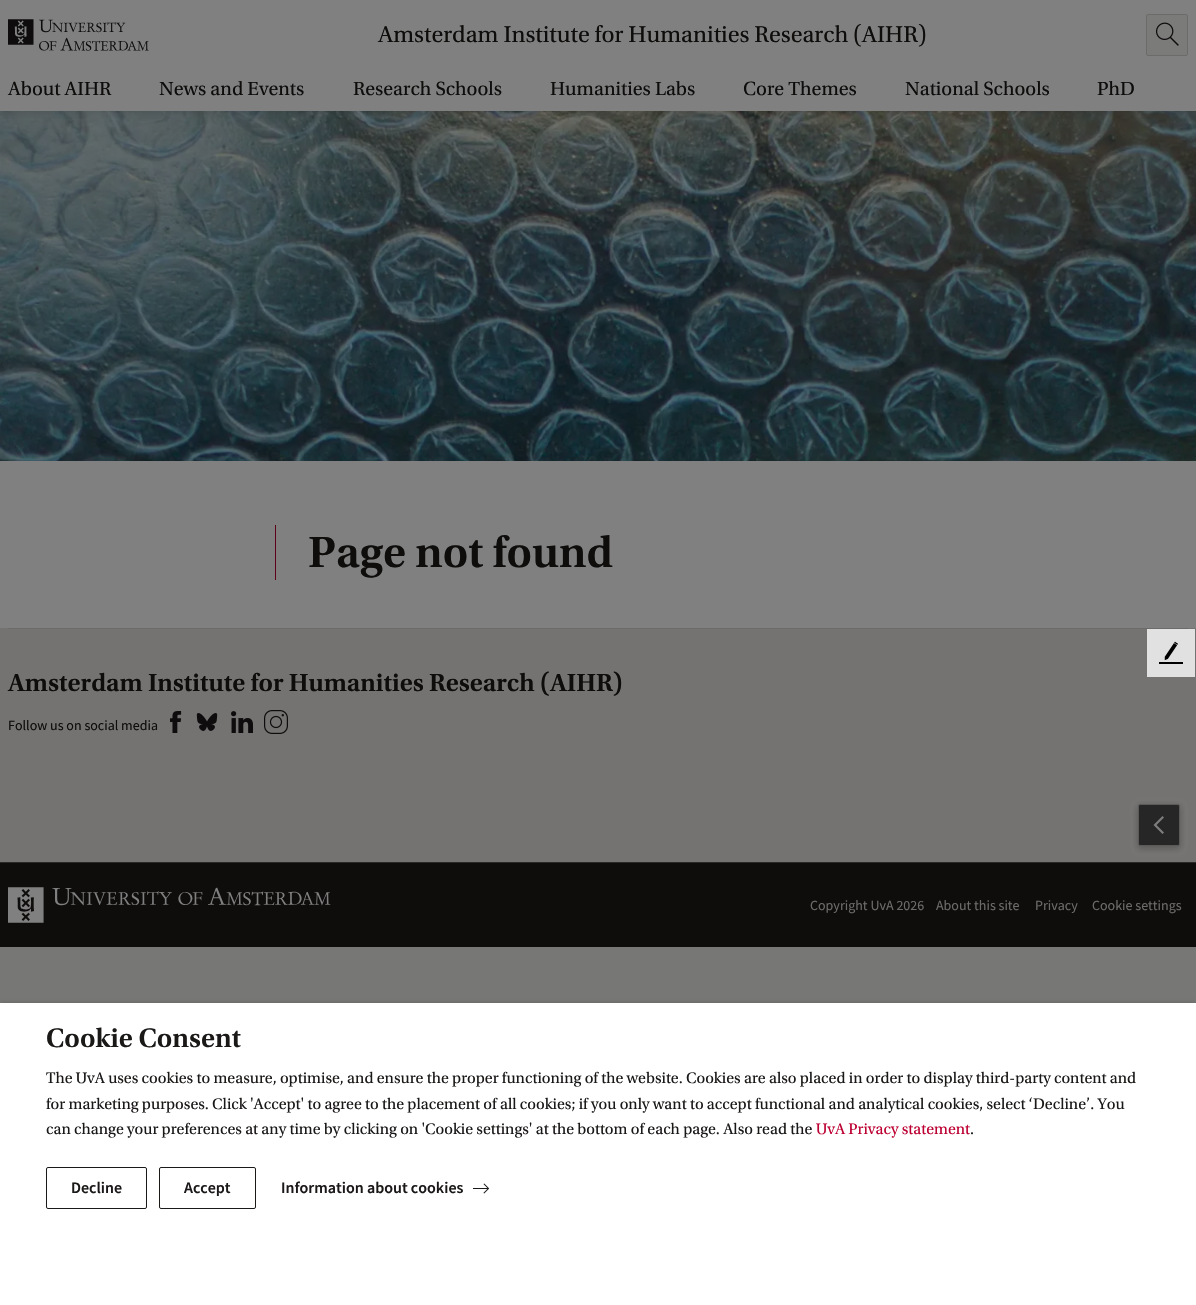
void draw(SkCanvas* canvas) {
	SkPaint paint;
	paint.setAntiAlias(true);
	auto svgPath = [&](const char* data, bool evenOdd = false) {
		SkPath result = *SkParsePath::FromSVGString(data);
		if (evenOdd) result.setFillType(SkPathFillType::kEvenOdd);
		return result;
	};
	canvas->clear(0xff777776);
	paint.setColor(0xff808080);
	canvas->drawRect(SkRect::MakeXYWH(0, 70, 1196, 41), paint);
	canvas->drawImageRect(SkImages::DeferredFromEncodedData(SkData::MakeFromFileName("img3.png")), SkRect::MakeXYWH(0, 111, 1196, 350), SkSamplingOptions());
	canvas->save();
	canvas->clipRect(SkRect::MakeXYWH(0, 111, 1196, 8));
	paint.setColor(0x26000000);
	paint.setMaskFilter(SkMaskFilter::MakeBlur(kNormal_SkBlurStyle, 5));
	canvas->drawRect(SkRect::MakeXYWH(0, 72, 1196, 41), paint);
	paint.setMaskFilter(nullptr);
	canvas->restore();
	paint.setColor(0xff808080);
	canvas->drawRect(SkRect::MakeXYWH(0, 0, 1196, 70), paint);
	canvas->drawImageRect(SkImages::DeferredFromEncodedData(SkData::MakeFromFileName("img1.png")), SkRect::MakeXYWH(8, 19, 141, 32), SkSamplingOptions());
	SkFont f1(fontMgr->matchFamilyStyle("Utopia", SkFontStyle::Normal()), 24);
	f1.setSubpixel(true);
	paint.setColor(0xff0e0d0c);
	canvas->drawString("Amsterdam Institute for Humanities Research (AIHR)", 378, 42, f1, paint);
	paint.setColor(0xff7b7b7a);
	canvas->drawRoundRect(SkRect::MakeXYWH(1146.5, 14.5, 41, 41), 1.5, 1.5, paint);
	paint.setStroke(true);
	paint.setStrokeWidth(1);
	paint.setColor(0xff6c6b6a);
	canvas->drawRoundRect(SkRect::MakeXYWH(1146.5, 14.5, 41, 41), 1.5, 1.5, paint);
	canvas->drawImageRect(SkImages::DeferredFromEncodedData(SkData::MakeFromFileName("img2.png")), SkRect::MakeXYWH(1156, 22, 23, 24), SkSamplingOptions());
	SkFont f2(fontMgr->matchFamilyStyle("Utopia", SkFontStyle::Normal()), 20);
	f2.setSubpixel(true);
	paint.setStroke(false);
	paint.setColor(0xff0e0d0c);
	canvas->drawString("About AIHR", 8, 95, f2, paint);
	canvas->drawString("News and Events", 159, 95, f2, paint);
	canvas->drawString("Research Schools", 353, 95, f2, paint);
	canvas->drawString("Humanities Labs", 550, 95, f2, paint);
	canvas->drawString("Core Themes", 743, 95, f2, paint);
	canvas->drawString("National Schools", 905, 95, f2, paint);
	canvas->drawString("PhD", 1097, 95, f2, paint);
	paint.setColor(0xff808080);
	canvas->drawRect(SkRect::MakeXYWH(0, 461, 1196, 167), paint);
	paint.setColor(0xff5f0019);
	canvas->drawRect(SkRect::MakeXYWH(275, 525, 1, 55), paint);
	SkFont f3(fontMgr->matchFamilyStyle("Utopia", SkFontStyle(600, SkFontStyle::kNormal_Width, SkFontStyle::kUpright_Slant)), 46);
	f3.setSubpixel(true);
	paint.setColor(0xff0e0d0c);
	canvas->drawString("Page not found", 308, 567, f3, paint);
	paint.setColor(0xff747372);
	canvas->drawRect(SkRect::MakeXYWH(0, 628, 1196, 234), paint);
	paint.setColor(0xffe1e1e1);
	canvas->drawRect(SkRect::MakeXYWH(1147, 629, 48, 48), paint);
	canvas->drawImageRect(SkImages::DeferredFromEncodedData(SkData::MakeFromFileName("img4.png")), SkRect::MakeXYWH(1159, 641, 24, 23), SkSamplingOptions());
	paint.setColor(0xff6c6b6a);
	canvas->drawRect(SkRect::MakeXYWH(8, 628, 1180, 1), paint);
	SkFont f4(fontMgr->matchFamilyStyle("Utopia", SkFontStyle(600, SkFontStyle::kNormal_Width, SkFontStyle::kUpright_Slant)), 26);
	f4.setSubpixel(true);
	paint.setColor(0xff0e0d0c);
	canvas->drawString("Amsterdam Institute for Humanities Research (AIHR)", 8, 691, f4, paint);
	SkFont f5(fontMgr->matchFamilyStyle("Source Sans Pro", SkFontStyle::Normal()), 14);
	f5.setSubpixel(true);
	canvas->drawString("Follow us on social media", 8, 730, f5, paint);
	canvas->drawImageRect(SkImages::DeferredFromEncodedData(SkData::MakeFromFileName("img5.png")), SkRect::MakeXYWH(170, 711, 12, 22), SkSamplingOptions());
	canvas->drawImageRect(SkImages::DeferredFromEncodedData(SkData::MakeFromFileName("img6.png")), SkRect::MakeXYWH(196, 713, 22, 18), SkSamplingOptions());
	canvas->drawImageRect(SkImages::DeferredFromEncodedData(SkData::MakeFromFileName("img7.png")), SkRect::MakeXYWH(231, 711, 22, 22), SkSamplingOptions());
	canvas->drawImageRect(SkImages::DeferredFromEncodedData(SkData::MakeFromFileName("img8.png")), SkRect::MakeXYWH(264, 710, 24, 24), SkSamplingOptions());
	paint.setColor(0x331d1d1d);
	paint.setMaskFilter(SkMaskFilter::MakeBlur(kNormal_SkBlurStyle, 3));
	canvas->drawRoundRect(SkRect::MakeXYWH(1138, 807, 42, 42), 2, 2, paint);
	paint.setMaskFilter(nullptr);
	paint.setColor(0x261d1d1d);
	paint.setMaskFilter(SkMaskFilter::MakeBlur(kNormal_SkBlurStyle, 3));
	canvas->drawRoundRect(SkRect::MakeXYWH(1138, 805, 42, 42), 2, 2, paint);
	paint.setMaskFilter(nullptr);
	paint.setColor(0xff272626);
	canvas->drawRoundRect(SkRect::MakeXYWH(1138.5, 804.5, 41, 41), 1.5, 1.5, paint);
	paint.setStroke(true);
	paint.setColor(0xff5c5a58);
	canvas->drawRoundRect(SkRect::MakeXYWH(1138.5, 804.5, 41, 41), 1.5, 1.5, paint);
	paint.setStroke(false);
	paint.setColor(0xff7d7d7c);
	canvas->drawPath(svgPath("M1153.5 825L1162.5 816L1164 817.5L1156.5 825L1164 832.5L1162.5 834Z"), paint);
	paint.setColor(0xff0e0d0c);
	canvas->drawRect(SkRect::MakeXYWH(0, 863, 1196, 84), paint);
	paint.setColor(0xff2b2827);
	canvas->drawRect(SkRect::MakeXYWH(0, 862, 1196, 1), paint);
	canvas->drawImageRect(SkImages::DeferredFromEncodedData(SkData::MakeFromFileName("img9.png")), SkRect::MakeXYWH(8, 887, 323, 36), SkSamplingOptions());
	paint.setColor(0xff6c6b6a);
	canvas->drawString("Copyright UvA 2026", 810, 910, f5, paint);
	canvas->drawString("About this site", 936, 910, f5, paint);
	canvas->drawString("Privacy", 1035, 910, f5, paint);
	canvas->drawString("Cookie settings", 1092, 910, f5, paint);
	paint.setColor(0x33000000);
	paint.setMaskFilter(SkMaskFilter::MakeBlur(kNormal_SkBlurStyle, 3));
	canvas->drawRect(SkRect::MakeXYWH(0, 1006, 1196, 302), paint);
	paint.setMaskFilter(nullptr);
	paint.setColor(0x26000000);
	paint.setMaskFilter(SkMaskFilter::MakeBlur(kNormal_SkBlurStyle, 3));
	canvas->drawRect(SkRect::MakeXYWH(0, 1004, 1196, 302), paint);
	paint.setMaskFilter(nullptr);
	paint.setColor(0xffffffff);
	canvas->drawRect(SkRect::MakeXYWH(0, 1003, 1196, 302), paint);
	SkFont f6(fontMgr->matchFamilyStyle("Utopia", SkFontStyle(600, SkFontStyle::kNormal_Width, SkFontStyle::kUpright_Slant)), 28);
	f6.setSubpixel(true);
	paint.setColor(0xff1b1918);
	canvas->drawString("Cookie Consent", 46, 1047, f6, paint);
	SkFont f7(fontMgr->matchFamilyStyle("Utopia", SkFontStyle::Normal()), 16);
	f7.setSubpixel(true);
	canvas->drawString("The UvA uses cookies to measure, optimise, and ensure the proper functioning of the website. Cookies are also placed in order to display third-party content and", 46, 1083, f7, paint);
	canvas->drawString("for marketing purposes. Click 'Accept' to agree to the placement of all cookies; if you only want to accept functional and analytical cookies, select ‘Decline’. You", 46, 1109, f7, paint);
	canvas->drawString("can change your preferences at any time by clicking on 'Cookie settings' at the bottom of each page. Also read the", 46, 1134, f7, paint);
	paint.setColor(0xffbd0032);
	canvas->drawString("UvA Privacy statement", 816, 1134, f7, paint);
	paint.setColor(0xff1b1918);
	canvas->drawString(".", 970, 1134, f7, paint);
	paint.setStroke(true);
	canvas->drawRoundRect(SkRect::MakeXYWH(46.5, 1167.5, 100, 41), 1.5, 1.5, paint);
	SkFont f8(fontMgr->matchFamilyStyle("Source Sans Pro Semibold", SkFontStyle(600, SkFontStyle::kNormal_Width, SkFontStyle::kUpright_Slant)), 16);
	f8.setSubpixel(true);
	paint.setStroke(false);
	canvas->drawString("Decline", 71, 1193, f8, paint);
	paint.setStroke(true);
	canvas->drawRoundRect(SkRect::MakeXYWH(159.5, 1167.5, 96, 41), 1.5, 1.5, paint);
	paint.setStroke(false);
	canvas->drawString("Accept", 184, 1193, f8, paint);
	canvas->drawString("Information about cookies", 281, 1193, f8, paint);
	canvas->drawImageRect(SkImages::DeferredFromEncodedData(SkData::MakeFromFileName("img10.png")), SkRect::MakeXYWH(473, 1183, 17, 11), SkSamplingOptions());
}
